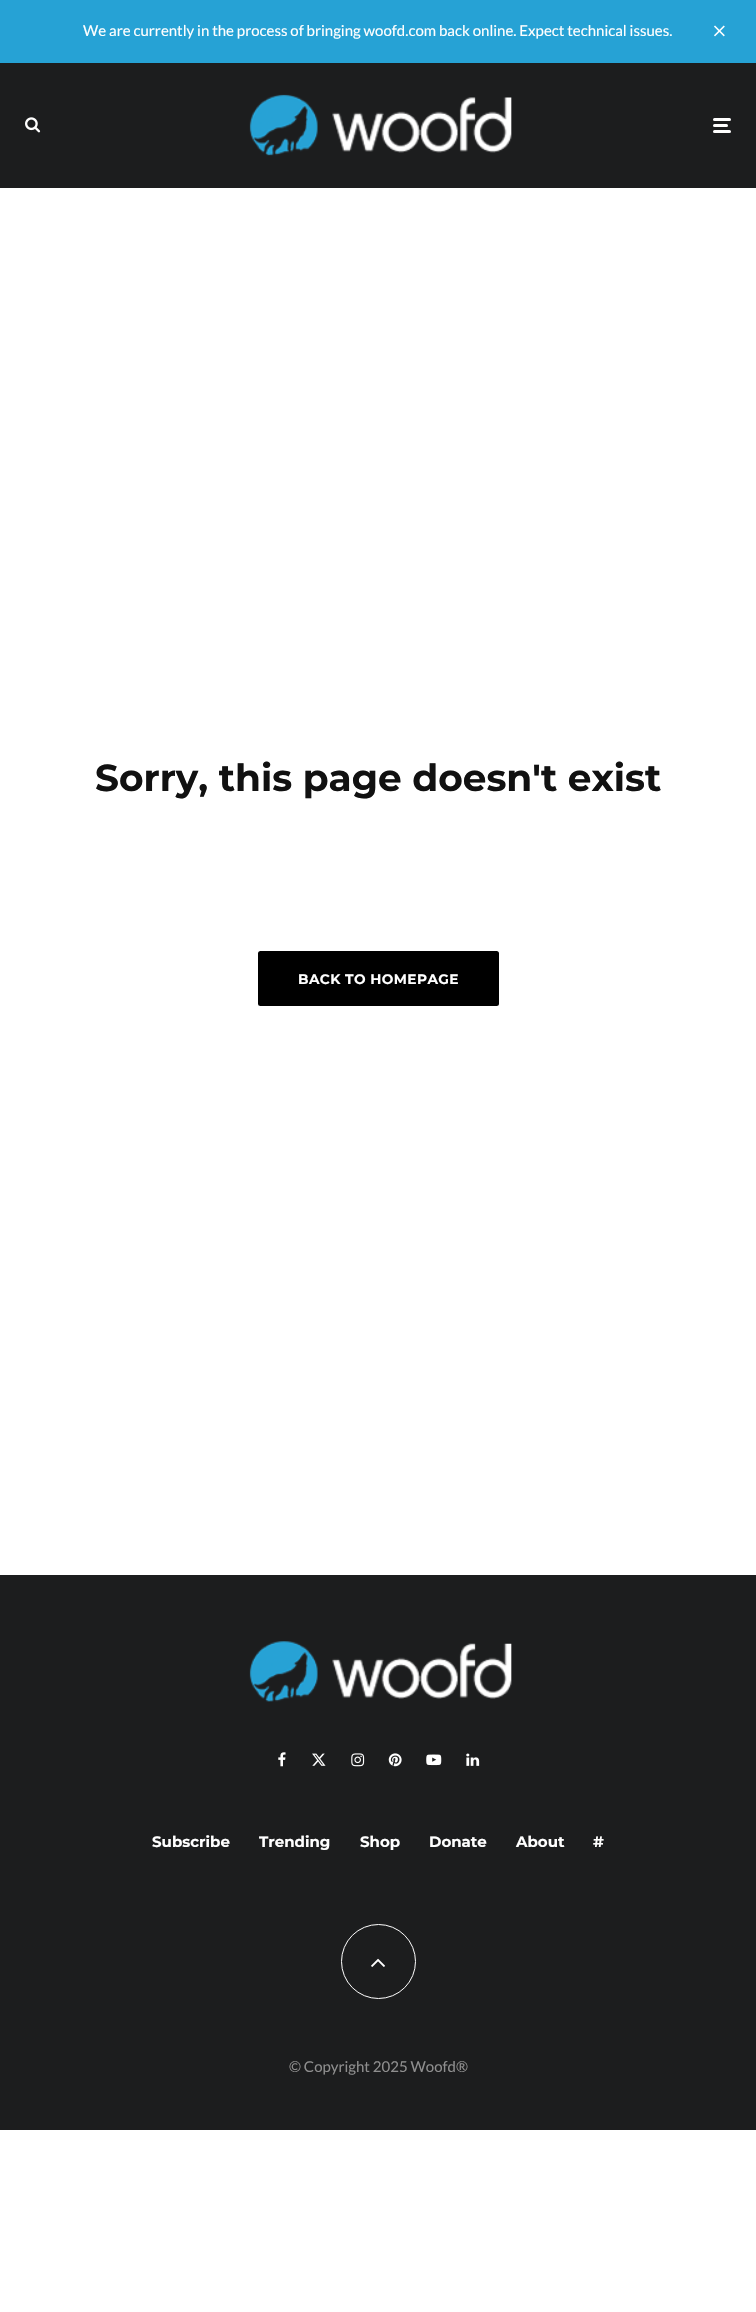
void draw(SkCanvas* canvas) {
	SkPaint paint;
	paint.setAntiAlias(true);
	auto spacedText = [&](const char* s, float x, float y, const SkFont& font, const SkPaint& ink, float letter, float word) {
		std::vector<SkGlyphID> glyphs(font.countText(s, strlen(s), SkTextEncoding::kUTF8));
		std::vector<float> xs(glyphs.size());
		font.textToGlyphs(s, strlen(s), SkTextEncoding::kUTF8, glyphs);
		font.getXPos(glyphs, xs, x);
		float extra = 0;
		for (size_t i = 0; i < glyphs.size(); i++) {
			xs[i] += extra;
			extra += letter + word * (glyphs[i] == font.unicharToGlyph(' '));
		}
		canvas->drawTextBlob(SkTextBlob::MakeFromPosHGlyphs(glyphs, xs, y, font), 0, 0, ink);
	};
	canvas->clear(0xffffffff);
	paint.setColor(0xff26a2d5);
	canvas->drawRect(SkRect::MakeXYWH(0, 0, 756, 63), paint);
	SkFont f1(fontMgr->matchFamilyStyle("Lato", SkFontStyle::Normal()), 15);
	f1.setSubpixel(true);
	paint.setColor(0xffffffff);
	canvas->drawString("We are currently in the process of bringing woofd.com back online. Expect technical issues.", 83, 36, f1, paint);
	canvas->drawImageRect(SkImages::DeferredFromEncodedData(SkData::MakeFromFileName("img1.png")), SkRect::MakeXYWH(714, 25, 11, 12), SkSamplingOptions());
	paint.setColor(0xff1c1d1e);
	canvas->drawRect(SkRect::MakeXYWH(0, 63, 756, 125), paint);
	canvas->drawImageRect(SkImages::DeferredFromEncodedData(SkData::MakeFromFileName("img2.png")), SkRect::MakeXYWH(25, 117, 16, 16), SkSamplingOptions());
	canvas->drawImageRect(SkImages::DeferredFromEncodedData(SkData::MakeFromFileName("img3.png")), SkRect::MakeXYWH(249, 94, 263, 62), SkSamplingOptions());
	paint.setColor(0xffffffff);
	canvas->drawRoundRect(SkRect::MakeXYWH(713, 124, 15, 3), 1.5, 1.5, paint);
	canvas->drawRoundRect(SkRect::MakeXYWH(713, 118, 18, 3), 1.5, 1.5, paint);
	canvas->drawRoundRect(SkRect::MakeXYWH(713, 130, 18, 3), 1.5, 1.5, paint);
	SkFont f2(fontMgr->matchFamilyStyle("Montserrat", SkFontStyle::Bold()), 37.5);
	f2.setSubpixel(true);
	paint.setColor(0xff111111);
	canvas->drawString("Sorry, this page doesn't exist", 95, 791, f2, paint);
	paint.setColor(0xff000000);
	canvas->drawRoundRect(SkRect::MakeXYWH(258, 951, 241, 55), 2.5, 2.5, paint);
	SkFont f3(fontMgr->matchFamilyStyle("Montserrat", SkFontStyle::Bold()), 13.75);
	f3.setSubpixel(true);
	paint.setColor(0xffffffff);
	spacedText("BACK TO HOMEPAGE", 298, 984, f3, paint, 0.4, 0);
	paint.setColor(0xff1c1d1e);
	canvas->drawRect(SkRect::MakeXYWH(0, 1575, 756, 555), paint);
	canvas->drawImageRect(SkImages::DeferredFromEncodedData(SkData::MakeFromFileName("img4.png")), SkRect::MakeXYWH(249, 1641, 263, 61), SkSamplingOptions());
	canvas->drawImageRect(SkImages::DeferredFromEncodedData(SkData::MakeFromFileName("img5.png")), SkRect::MakeXYWH(278, 1752, 8, 15), SkSamplingOptions());
	canvas->drawImageRect(SkImages::DeferredFromEncodedData(SkData::MakeFromFileName("img6.png")), SkRect::MakeXYWH(312, 1753, 14, 13), SkSamplingOptions());
	canvas->drawImageRect(SkImages::DeferredFromEncodedData(SkData::MakeFromFileName("img7.png")), SkRect::MakeXYWH(351, 1753, 14, 14), SkSamplingOptions());
	canvas->drawImageRect(SkImages::DeferredFromEncodedData(SkData::MakeFromFileName("img8.png")), SkRect::MakeXYWH(388, 1753, 14, 14), SkSamplingOptions());
	canvas->drawImageRect(SkImages::DeferredFromEncodedData(SkData::MakeFromFileName("img9.png")), SkRect::MakeXYWH(426, 1754, 16, 12), SkSamplingOptions());
	canvas->drawImageRect(SkImages::DeferredFromEncodedData(SkData::MakeFromFileName("img10.png")), SkRect::MakeXYWH(466, 1753, 14, 13), SkSamplingOptions());
	SkFont f4(fontMgr->matchFamilyStyle("Montserrat", SkFontStyle::Bold()), 15);
	f4.setSubpixel(true);
	paint.setColor(0xffffffff);
	canvas->drawString("Subscribe", 152, 1847, f4, paint);
	canvas->drawString("Trending", 259, 1847, f4, paint);
	canvas->drawString("Shop", 360, 1847, f4, paint);
	canvas->drawString("Donate", 429, 1847, f4, paint);
	canvas->drawString("About", 516, 1847, f4, paint);
	canvas->drawString("#", 593, 1847, f4, paint);
	paint.setStroke(true);
	paint.setStrokeWidth(1);
	canvas->drawCircle(378.5, 1961.5, 37, paint);
	canvas->drawImageRect(SkImages::DeferredFromEncodedData(SkData::MakeFromFileName("img11.png")), SkRect::MakeXYWH(371, 1958, 14, 9), SkSamplingOptions());
	paint.setStroke(false);
	paint.setColor(0xff8e8e8e);
	canvas->drawString("© Copyright 2025 Woofd®", 289, 2072, f1, paint);
}
